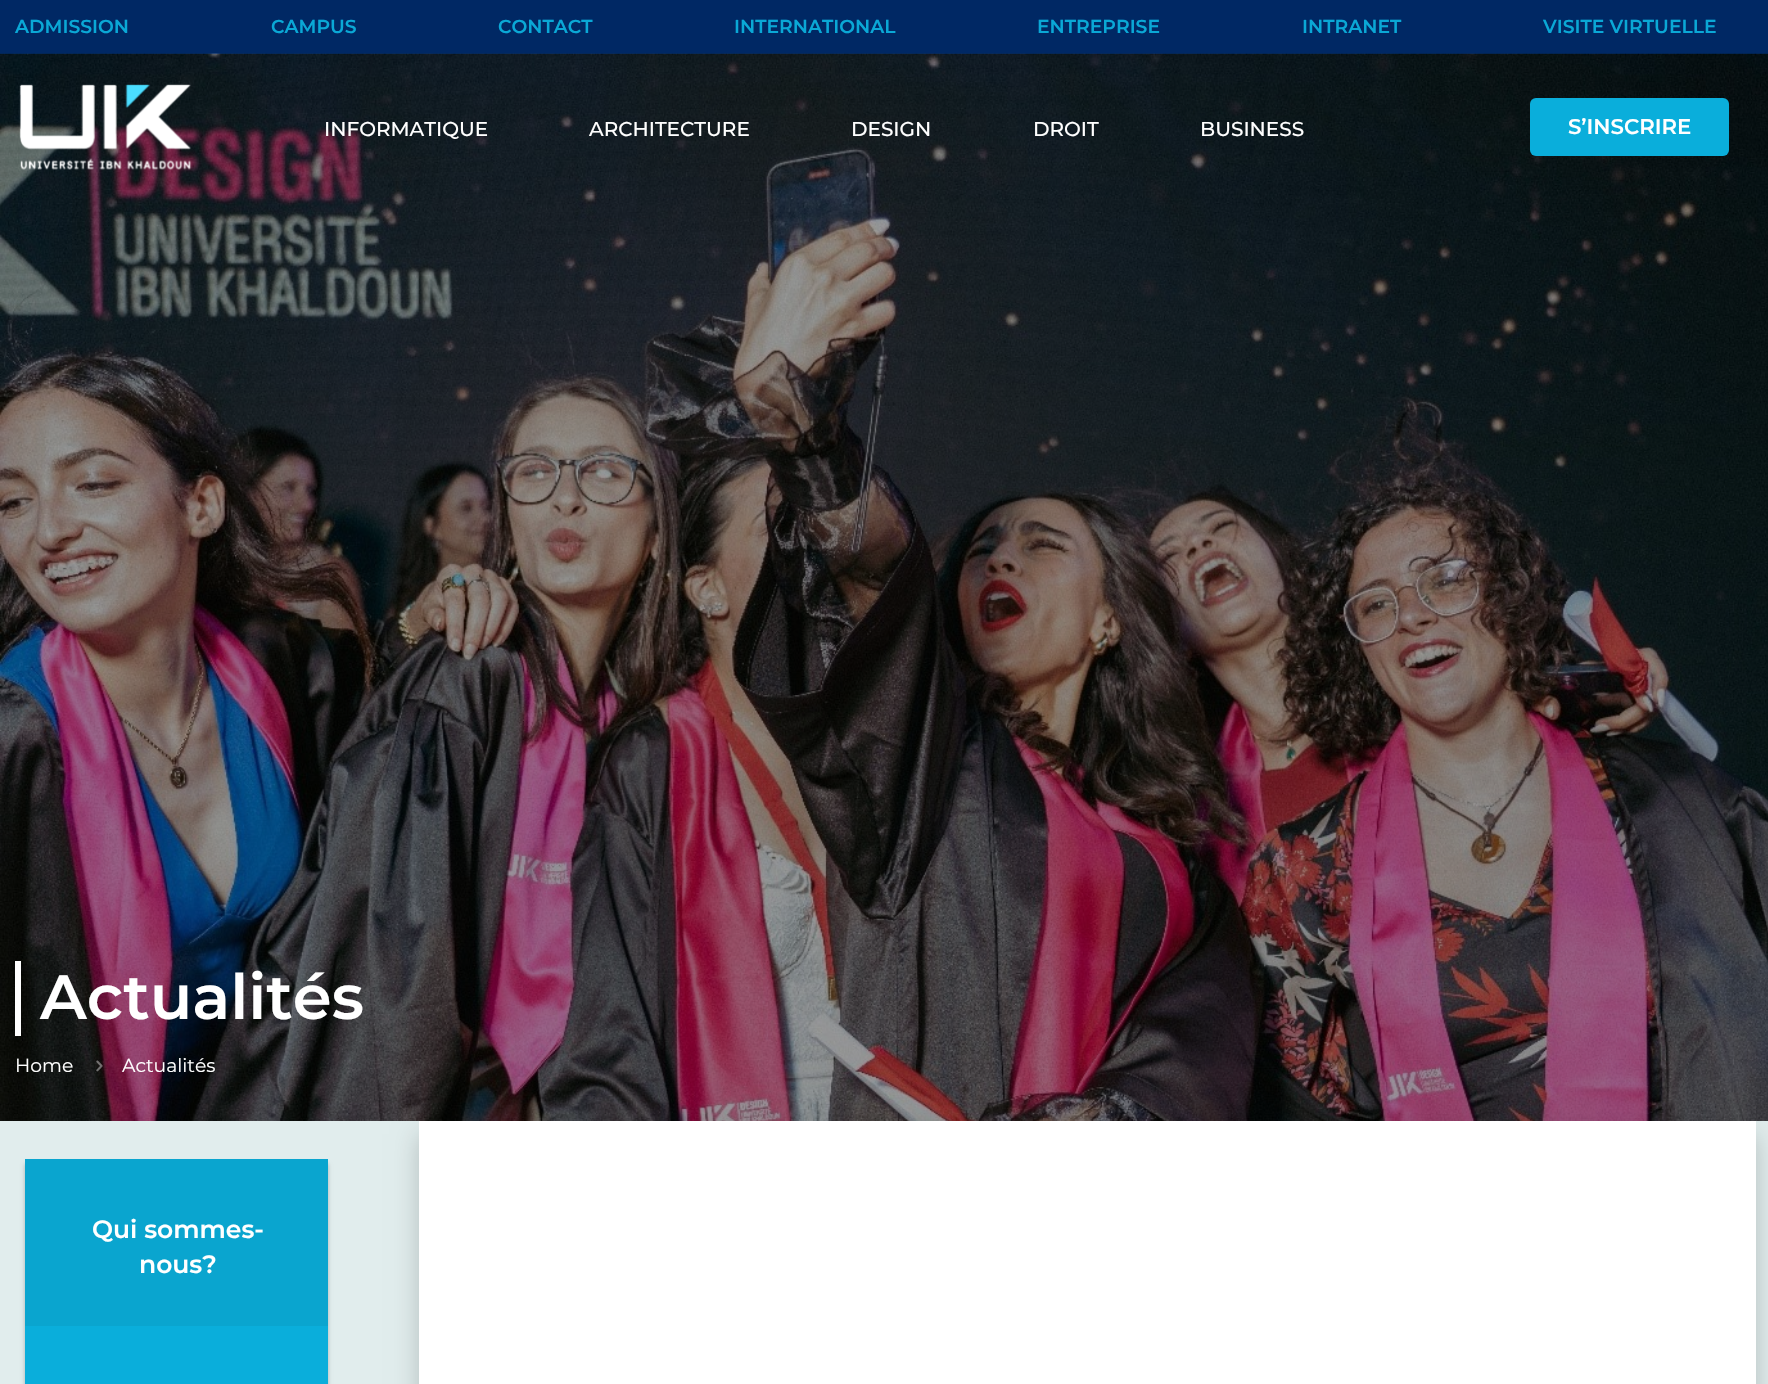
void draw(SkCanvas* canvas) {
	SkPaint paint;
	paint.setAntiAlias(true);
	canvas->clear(0xff002864);
	SkFont f1(fontMgr->matchFamilyStyle("Montserrat", SkFontStyle(600, SkFontStyle::kNormal_Width, SkFontStyle::kUpright_Slant)), 18.75);
	f1.setSubpixel(true);
	paint.setColor(0xff0aa8d6);
	canvas->drawString("ADMISSION", 15, 33, f1, paint);
	canvas->drawString("CAMPUS", 271, 33, f1, paint);
	canvas->drawString("CONTACT", 498, 33, f1, paint);
	canvas->drawString("INTERNATIONAL", 734, 33, f1, paint);
	canvas->drawString("ENTREPRISE", 1037, 33, f1, paint);
	canvas->drawString("INTRANET", 1302, 33, f1, paint);
	canvas->drawString("VISITE VIRTUELLE", 1543, 33, f1, paint);
	canvas->drawImageRect(SkImages::DeferredFromEncodedData(SkData::MakeFromFileName("img2.png")), SkRect::MakeXYWH(0, 53, 1768, 1068), SkSamplingOptions());
	paint.setColor(0xffe1eded);
	canvas->drawRect(SkRect::MakeXYWH(0, 1121, 1768, 263), paint);
	paint.setColor(0x33000000);
	paint.setMaskFilter(SkMaskFilter::MakeBlur(kNormal_SkBlurStyle, 12.5));
	canvas->drawRect(SkRect::MakeXYWH(419, 1134, 1337, 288), paint);
	paint.setMaskFilter(nullptr);
	paint.setColor(0x66000000);
	canvas->drawRect(SkRect::MakeXYWH(0, 54, 1768, 1067), paint);
	canvas->drawImageRect(SkImages::DeferredFromEncodedData(SkData::MakeFromFileName("img1.png")), SkRect::MakeXYWH(19, 84, 173, 86), SkSamplingOptions());
	SkFont f2(fontMgr->matchFamilyStyle("Montserrat", SkFontStyle(500, SkFontStyle::kNormal_Width, SkFontStyle::kUpright_Slant)), 20);
	f2.setSubpixel(true);
	paint.setColor(0xffffffff);
	canvas->drawString("INFORMATIQUE", 324, 136, f2, paint);
	canvas->drawString("ARCHITECTURE", 589, 136, f2, paint);
	canvas->drawString("DESIGN", 851, 136, f2, paint);
	canvas->drawString("DROIT", 1033, 136, f2, paint);
	canvas->drawString("BUSINESS", 1200, 136, f2, paint);
	paint.setColor(0xff0aaedb);
	canvas->drawRoundRect(SkRect::MakeXYWH(1530, 98, 199, 58), 6, 6, paint);
	SkFont f3(fontMgr->matchFamilyStyle("Montserrat", SkFontStyle(600, SkFontStyle::kNormal_Width, SkFontStyle::kUpright_Slant)), 21.25);
	f3.setSubpixel(true);
	paint.setColor(0xffffffff);
	canvas->drawString("S’INSCRIRE", 1568, 134, f3, paint);
	canvas->drawRect(SkRect::MakeXYWH(15, 961, 6, 75), paint);
	SkFont f4(fontMgr->matchFamilyStyle("Montserrat", SkFontStyle(600, SkFontStyle::kNormal_Width, SkFontStyle::kUpright_Slant)), 62.5);
	f4.setSubpixel(true);
	canvas->drawString("Actualités", 40, 1019, f4, paint);
	SkFont f5(fontMgr->matchFamilyStyle("Montserrat", SkFontStyle::Normal()), 18.75);
	f5.setSubpixel(true);
	canvas->drawString("Home", 15, 1072, f5, paint);
	canvas->drawImageRect(SkImages::DeferredFromEncodedData(SkData::MakeFromFileName("img3.png")), SkRect::MakeXYWH(96, 1060, 7, 12), SkSamplingOptions());
	canvas->drawString("Actualités", 122, 1072, f5, paint);
	paint.setColor(0x40000000);
	paint.setMaskFilter(SkMaskFilter::MakeBlur(kNormal_SkBlurStyle, 2));
	canvas->drawRect(SkRect::MakeXYWH(25, 1164, 303, 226), paint);
	paint.setMaskFilter(nullptr);
	paint.setColor(0xff0aa5cf);
	canvas->drawRect(SkRect::MakeXYWH(25, 1159, 303, 167), paint);
	SkFont f6(fontMgr->matchFamilyStyle("Montserrat", SkFontStyle(600, SkFontStyle::kNormal_Width, SkFontStyle::kUpright_Slant)), 25);
	f6.setSubpixel(true);
	paint.setColor(0xffffffff);
	canvas->drawString("Qui sommes-", 92, 1238, f6, paint);
	canvas->drawString("nous?", 139, 1273, f6, paint);
	paint.setColor(0xff0aaedb);
	canvas->drawRect(SkRect::MakeXYWH(25, 1326, 303, 58), paint);
	paint.setColor(0xffffffff);
	canvas->drawRect(SkRect::MakeXYWH(419, 1121, 1337, 263), paint);
}
